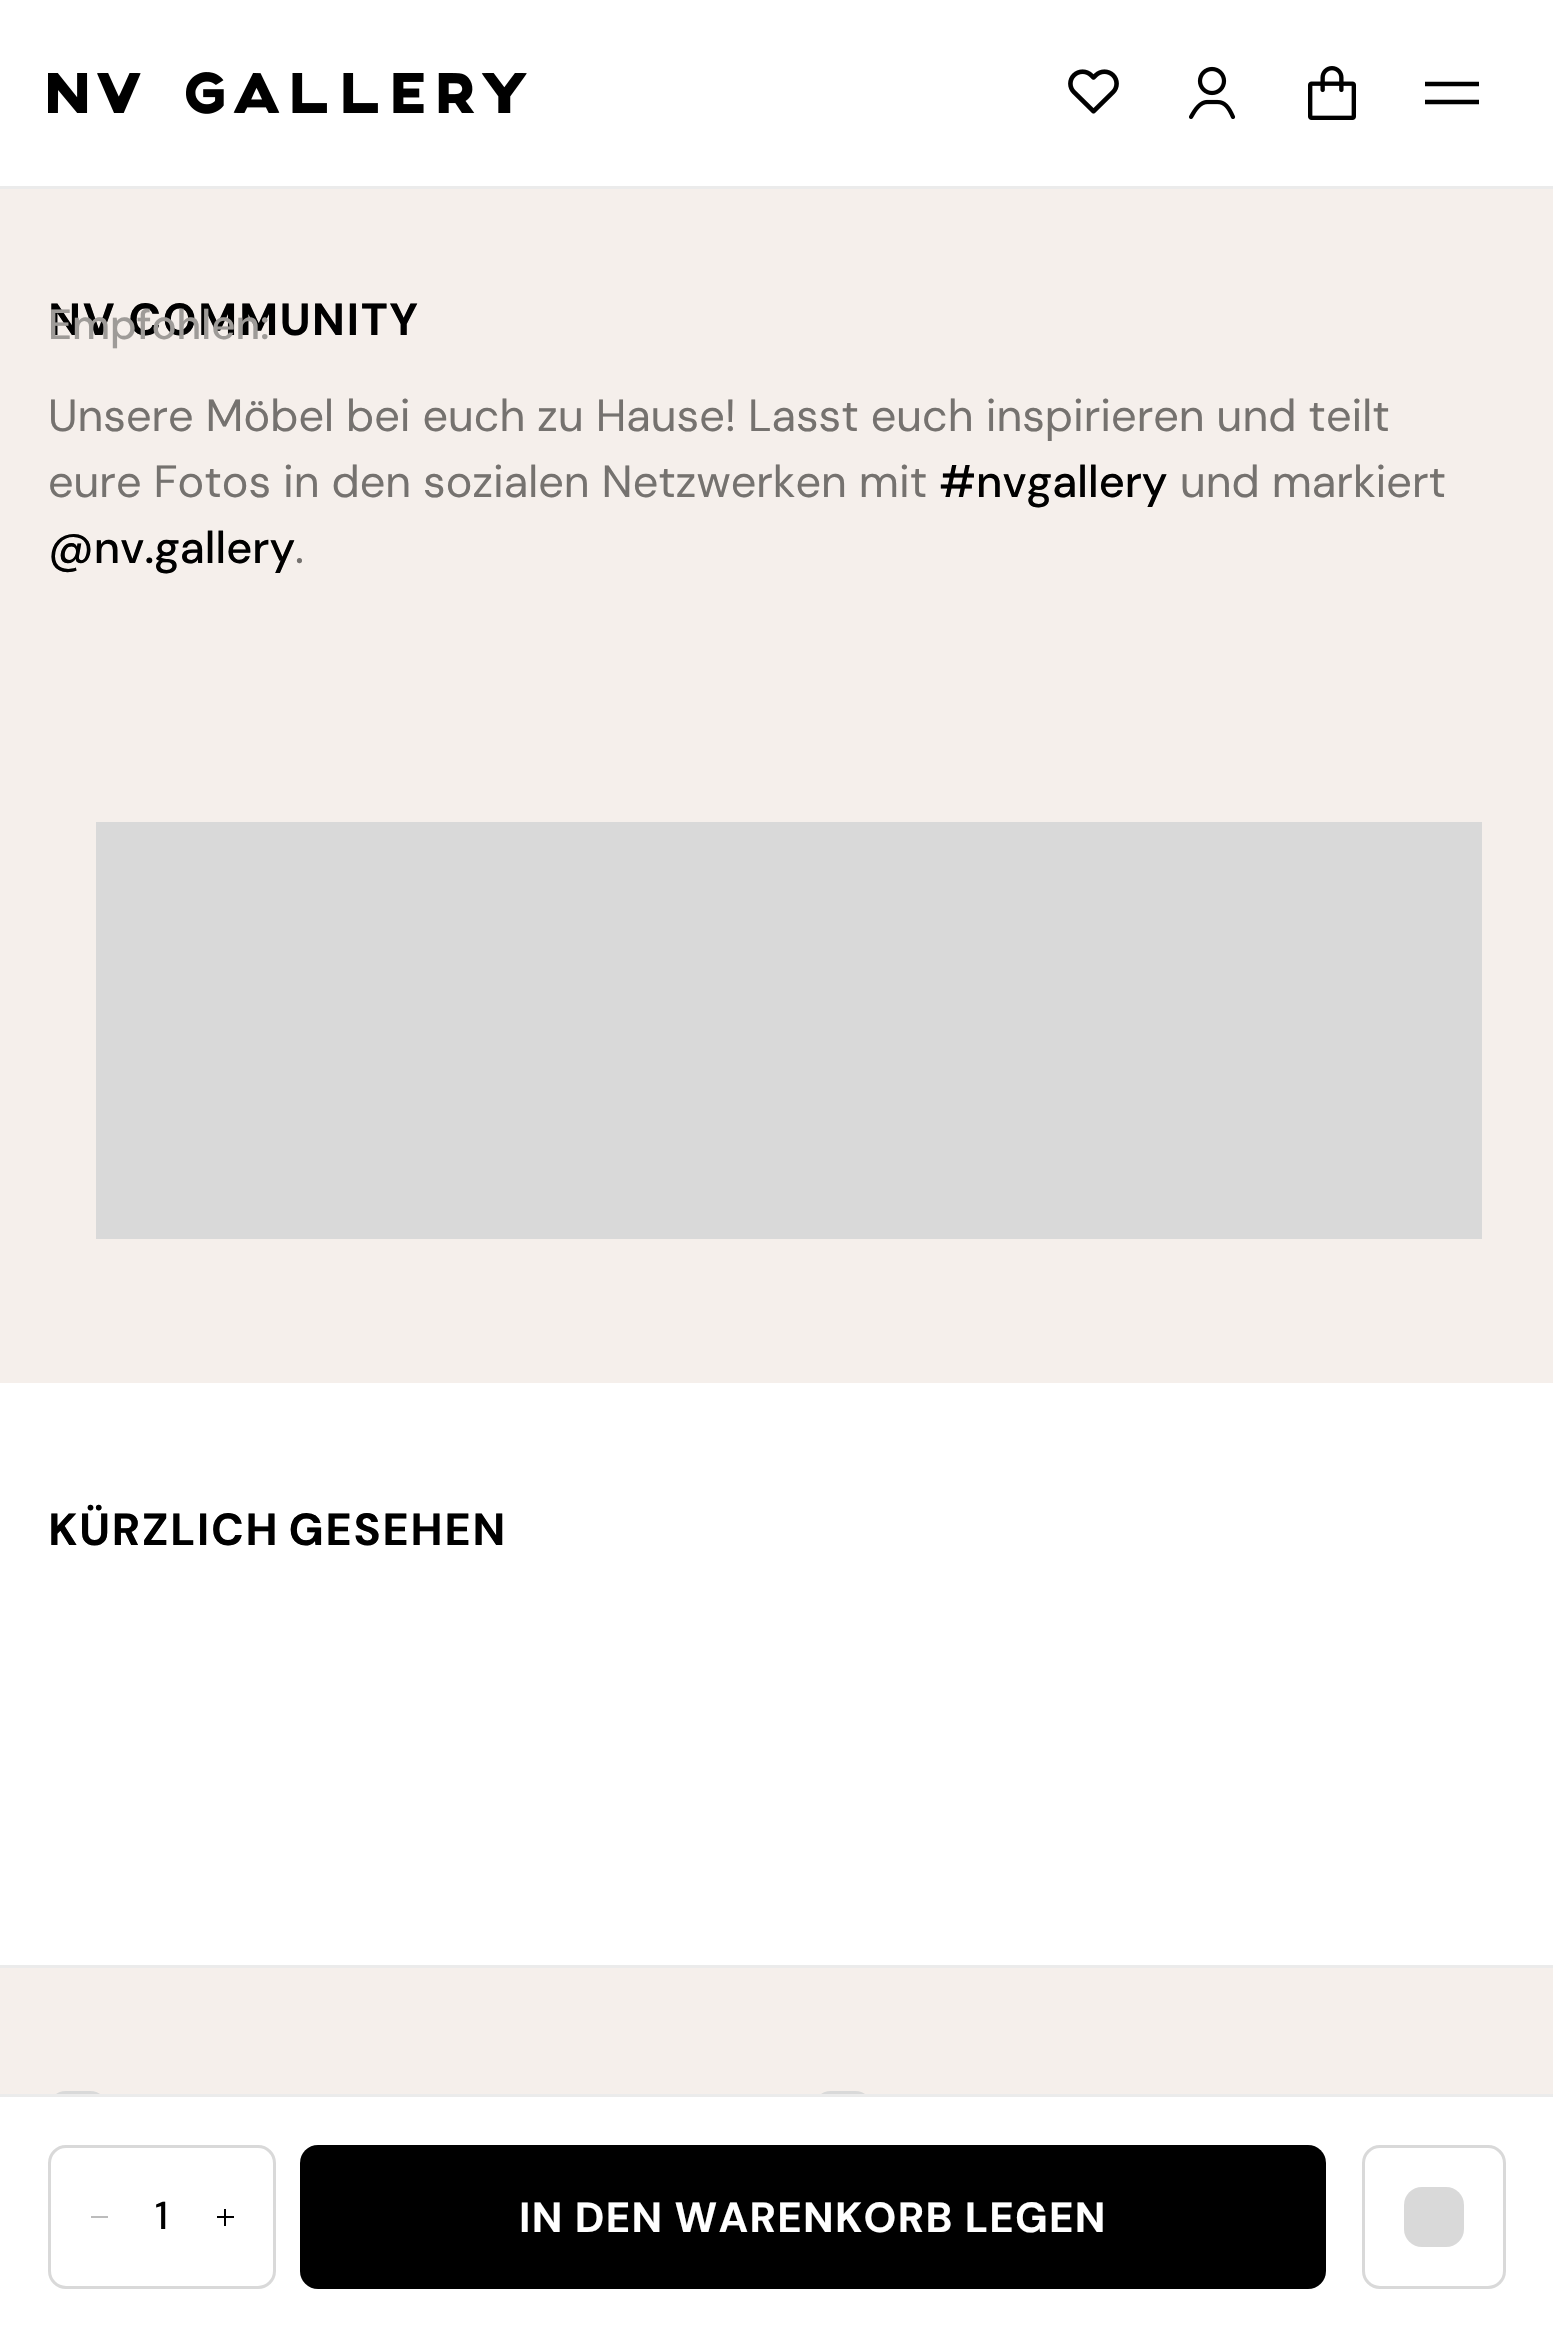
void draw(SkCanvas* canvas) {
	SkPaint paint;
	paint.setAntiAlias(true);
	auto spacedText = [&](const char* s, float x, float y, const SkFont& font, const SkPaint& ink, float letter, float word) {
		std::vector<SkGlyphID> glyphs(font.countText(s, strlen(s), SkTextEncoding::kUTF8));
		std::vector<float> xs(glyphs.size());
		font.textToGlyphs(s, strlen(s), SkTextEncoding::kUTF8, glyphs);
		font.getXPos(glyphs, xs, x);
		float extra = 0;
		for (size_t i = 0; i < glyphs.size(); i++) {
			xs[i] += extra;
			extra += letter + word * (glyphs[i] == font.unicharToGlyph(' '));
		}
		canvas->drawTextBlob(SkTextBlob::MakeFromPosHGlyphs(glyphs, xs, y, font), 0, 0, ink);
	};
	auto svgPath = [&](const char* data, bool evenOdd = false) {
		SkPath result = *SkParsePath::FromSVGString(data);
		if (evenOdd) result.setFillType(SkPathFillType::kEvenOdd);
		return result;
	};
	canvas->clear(0xffffffff);
	paint.setColor(0xfff5efeb);
	canvas->drawRect(SkRect::MakeXYWH(0, 189, 1553, 1194), paint);
	SkFont f1(fontMgr->matchFamilyStyle("DM Sans", SkFontStyle::Bold()), 45);
	f1.setSubpixel(true);
	paint.setColor(0xff000000);
	spacedText("NV COMMUNITY", 48, 335, f1, paint, 1.4, 0);
	SkFont f2(fontMgr->matchFamilyStyle("DM Sans", SkFontStyle::Normal()), 45);
	f2.setSubpixel(true);
	paint.setColor(0xff75726f);
	canvas->drawString("Unsere Möbel bei euch zu Hause! Lasst euch inspirieren und teilt", 48, 431, f2, paint);
	canvas->drawString("eure Fotos in den sozialen Netzwerken mit", 48, 497, f2, paint);
	SkFont f3(fontMgr->matchFamilyStyle("DM Sans", SkFontStyle(500, SkFontStyle::kNormal_Width, SkFontStyle::kUpright_Slant)), 45);
	f3.setSubpixel(true);
	paint.setColor(0xff000000);
	canvas->drawString("#nvgallery", 939, 497, f3, paint);
	paint.setColor(0xff75726f);
	canvas->drawString("und markiert", 1180, 497, f2, paint);
	paint.setColor(0xff000000);
	canvas->drawString("@nv.gallery", 48, 563, f3, paint);
	paint.setColor(0xff75726f);
	canvas->drawString(".", 295, 563, f2, paint);
	paint.setColor(0xffd9d9d9);
	canvas->drawRect(SkRect::MakeXYWH(96, 822, 1386, 417), paint);
	paint.setColor(0xff000000);
	spacedText("KÜRZLICH GESEHEN", 48, 1545, f1, paint, 1.4, -3);
	paint.setColor(0xffebebeb);
	canvas->drawRect(SkRect::MakeXYWH(0, 1965, 1553, 3), paint);
	paint.setColor(0xfff5efeb);
	canvas->drawRect(SkRect::MakeXYWH(0, 1968, 1553, 126), paint);
	paint.setColor(0xffd9d9d9);
	canvas->drawRoundRect(SkRect::MakeXYWH(48, 2091, 60, 60), 18, 18, paint);
	canvas->drawRoundRect(SkRect::MakeXYWH(813, 2091, 60, 60), 18, 18, paint);
	paint.setColor(0xffffffff);
	canvas->drawRect(SkRect::MakeXYWH(48, 2097, 825, 54), paint);
	paint.setColor(0xffebebeb);
	canvas->drawRect(SkRect::MakeXYWH(0, 2094, 1553, 3), paint);
	paint.setStroke(true);
	paint.setStrokeWidth(3);
	paint.setColor(0xffd9d9d9);
	canvas->drawRoundRect(SkRect::MakeXYWH(49.5, 2146.5, 225, 141), 16.5, 16.5, paint);
	paint.setStroke(false);
	paint.setColor(0xffbcbcbc);
	canvas->drawRect(SkRect::MakeXYWH(91, 2216, 17, 2), paint);
	SkFont f4(fontMgr->matchFamilyStyle("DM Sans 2", SkFontStyle(500, SkFontStyle::kNormal_Width, SkFontStyle::kUpright_Slant)), 39);
	f4.setSubpixel(true);
	paint.setColor(0xff000000);
	canvas->drawString("1", 155, 2229, f4, paint);
	canvas->drawRect(SkRect::MakeXYWH(224, 2209, 2, 17), paint);
	canvas->drawRect(SkRect::MakeXYWH(217, 2216, 17, 2), paint);
	canvas->drawRoundRect(SkRect::MakeXYWH(300, 2145, 1026, 144), 18, 18, paint);
	SkFont f5(fontMgr->matchFamilyStyle("DM Sans 2", SkFontStyle::Bold()), 42);
	f5.setSubpixel(true);
	paint.setColor(0xffffffff);
	spacedText("IN DEN WARENKORB LEGEN", 519, 2232, f5, paint, 1.25, 0);
	paint.setStroke(true);
	paint.setColor(0xffd9d9d9);
	canvas->drawRoundRect(SkRect::MakeXYWH(1363.5, 2146.5, 141, 141), 16.5, 16.5, paint);
	paint.setStroke(false);
	canvas->drawRoundRect(SkRect::MakeXYWH(1404, 2187, 60, 60), 18, 18, paint);
	paint.setColor(0xffebebeb);
	canvas->drawRect(SkRect::MakeXYWH(0, 186, 1553, 3), paint);
	canvas->drawImageRect(SkImages::DeferredFromEncodedData(SkData::MakeFromFileName("img1.png")), SkRect::MakeXYWH(48, 72, 479, 42), SkSamplingOptions());
	canvas->drawImageRect(SkImages::DeferredFromEncodedData(SkData::MakeFromFileName("img2.png")), SkRect::MakeXYWH(1068, 69, 51, 45), SkSamplingOptions());
	canvas->drawImageRect(SkImages::DeferredFromEncodedData(SkData::MakeFromFileName("img3.png")), SkRect::MakeXYWH(1189, 66, 47, 53), SkSamplingOptions());
	canvas->drawImageRect(SkImages::DeferredFromEncodedData(SkData::MakeFromFileName("img4.png")), SkRect::MakeXYWH(1308, 66, 48, 54), SkSamplingOptions());
	paint.setStroke(true);
	paint.setStrokeWidth(4.5);
	paint.setColor(0xff000000);
	canvas->drawPath(svgPath("M1425 84H1479M1425 102H1479"), paint);
	SkFont f6(fontMgr->matchFamilyStyle("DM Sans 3", SkFontStyle(500, SkFontStyle::kNormal_Width, SkFontStyle::kUpright_Slant)), 42);
	f6.setSubpixel(true);
	paint.setStroke(false);
	paint.setColor(0xff9e9b98);
	canvas->drawString("Empfohlen:", 48, 339, f6, paint);
}
